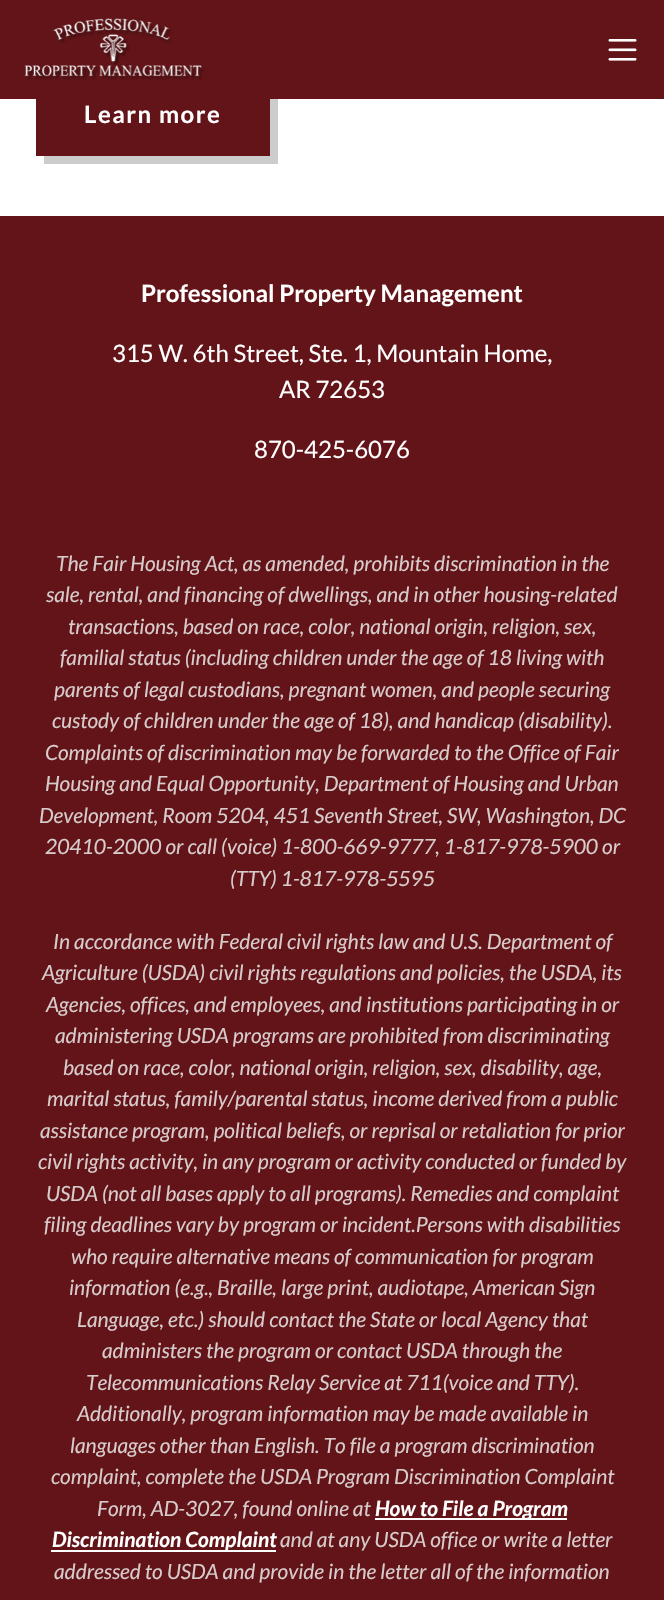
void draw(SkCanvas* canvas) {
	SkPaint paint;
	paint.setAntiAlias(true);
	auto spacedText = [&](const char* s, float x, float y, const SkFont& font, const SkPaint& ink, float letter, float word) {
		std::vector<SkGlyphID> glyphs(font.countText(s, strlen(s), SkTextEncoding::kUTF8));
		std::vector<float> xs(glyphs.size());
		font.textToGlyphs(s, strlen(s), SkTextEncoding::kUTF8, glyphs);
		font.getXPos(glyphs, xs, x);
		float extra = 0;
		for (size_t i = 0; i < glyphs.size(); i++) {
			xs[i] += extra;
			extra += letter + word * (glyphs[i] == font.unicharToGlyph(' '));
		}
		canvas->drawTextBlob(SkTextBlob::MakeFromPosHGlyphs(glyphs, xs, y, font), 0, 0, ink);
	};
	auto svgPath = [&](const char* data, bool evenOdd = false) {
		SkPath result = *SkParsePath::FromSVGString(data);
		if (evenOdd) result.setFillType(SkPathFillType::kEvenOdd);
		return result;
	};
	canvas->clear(0xff621418);
	paint.setColor(0xffffffff);
	canvas->drawRect(SkRect::MakeXYWH(0, 99, 664, 117), paint);
	paint.setColor(0xff621418);
	canvas->drawRect(SkRect::MakeXYWH(36, 99, 234, 57), paint);
	paint.setColor(0xffcccccc);
	canvas->drawPath(svgPath("M44 156V164H278V80H270V156Z"), paint);
	paint.setColor(0xff621418);
	canvas->drawRect(SkRect::MakeXYWH(270, 80, 8, 19), paint);
	canvas->drawImageRect(SkImages::DeferredFromEncodedData(SkData::MakeFromFileName("img1.png")), SkRect::MakeXYWH(24, 18, 181, 62), SkSamplingOptions());
	canvas->drawImageRect(SkImages::DeferredFromEncodedData(SkData::MakeFromFileName("img2.png")), SkRect::MakeXYWH(608, 39, 29, 22), SkSamplingOptions());
	SkFont f1(fontMgr->matchFamilyStyle("Lato", SkFontStyle::Bold()), 24);
	f1.setSubpixel(true);
	paint.setColor(0xffffffff);
	spacedText("Learn more", 84, 123, f1, paint, 1.5, 0);
	canvas->drawString("Professional Property Management", 141, 302, f1, paint);
	SkFont f2(fontMgr->matchFamilyStyle("Lato", SkFontStyle::Normal()), 24);
	f2.setSubpixel(true);
	canvas->drawString("315 W. 6th Street, Ste. 1, Mountain Home,", 112, 362, f2, paint);
	canvas->drawString("AR 72653", 279, 398, f2, paint);
	canvas->drawString("870-425-6076", 254, 458, f2, paint);
	SkFont f3(fontMgr->matchFamilyStyle("Lato", SkFontStyle::Italic()), 21);
	f3.setSubpixel(true);
	paint.setColor(0xffd7cbcb);
	canvas->drawString("The Fair Housing Act, as amended, prohibits discrimination in the", 56, 571, f3, paint);
	canvas->drawString("sale, rental, and financing of dwellings, and in other housing-related", 46, 602, f3, paint);
	canvas->drawString("transactions, based on race, color, national origin, religion, sex,", 68, 634, f3, paint);
	canvas->drawString("familial status (including children under the age of 18 living with", 60, 665, f3, paint);
	canvas->drawString("parents of legal custodians, pregnant women, and people securing", 54, 697, f3, paint);
	canvas->drawString("custody of children under the age of 18), and handicap (disability).", 52, 728, f3, paint);
	canvas->drawString("Complaints of discrimination may be forwarded to the Office of Fair", 45, 760, f3, paint);
	canvas->drawString("Housing and Equal Opportunity, Department of Housing and Urban", 45, 791, f3, paint);
	canvas->drawString("Development, Room 5204, 451 Seventh Street, SW, Washington, DC", 39, 823, f3, paint);
	canvas->drawString("20410-2000 or call (voice) 1-800-669-9777, 1-817-978-5900 or", 45, 854, f3, paint);
	canvas->drawString("(TTY) 1-817-978-5595", 230, 886, f3, paint);
	canvas->drawString("In accordance with Federal civil rights law and U.S. Department of", 53, 949, f3, paint);
	canvas->drawString("Agriculture (USDA) civil rights regulations and policies, the USDA, its", 42, 980, f3, paint);
	canvas->drawString("Agencies, offices, and employees, and institutions participating in or", 46, 1012, f3, paint);
	canvas->drawString("administering USDA programs are prohibited from discriminating", 55, 1043, f3, paint);
	canvas->drawString("based on race, color, national origin, religion, sex, disability, age,", 63, 1075, f3, paint);
	canvas->drawString("marital status, family/parental status, income derived from a public", 47, 1106, f3, paint);
	canvas->drawString("assistance program, political beliefs, or reprisal or retaliation for prior", 40, 1138, f3, paint);
	canvas->drawString("civil rights activity, in any program or activity conducted or funded by", 38, 1169, f3, paint);
	canvas->drawString("USDA (not all bases apply to all programs). Remedies and complaint", 46, 1201, f3, paint);
	canvas->drawString("filing deadlines vary by program or incident.Persons with disabilities", 44, 1232, f3, paint);
	canvas->drawString("who require alternative means of communication for program", 71, 1264, f3, paint);
	canvas->drawString("information (e.g., Braille, large print, audiotape, American Sign", 69, 1295, f3, paint);
	canvas->drawString("Language, etc.) should contact the State or local Agency that", 77, 1327, f3, paint);
	canvas->drawString("administers the program or contact USDA through the", 102, 1358, f3, paint);
	canvas->drawString("Telecommunications Relay Service at 711(voice and TTY).", 86, 1390, f3, paint);
	canvas->drawString("Additionally, program information may be made available in", 77, 1421, f3, paint);
	canvas->drawString("languages other than English. To file a program discrimination", 70, 1453, f3, paint);
	canvas->drawString("complaint, complete the USDA Program Discrimination Complaint", 51, 1484, f3, paint);
	canvas->drawString("Form, AD-3027, found online at", 97, 1516, f3, paint);
	paint.setColor(0xffffffff);
	canvas->drawRect(SkRect::MakeXYWH(375, 1518, 192, 2), paint);
	SkFont f4(fontMgr->matchFamilyStyle("Lato", SkFontStyle::BoldItalic()), 21);
	f4.setSubpixel(true);
	canvas->drawString("How to File a Program", 375, 1516, f4, paint);
	canvas->drawRect(SkRect::MakeXYWH(51, 1550, 225, 2), paint);
	canvas->drawString("Discrimination Complaint", 52, 1547, f4, paint);
	paint.setColor(0xffd7cbcb);
	canvas->drawString("and at any USDA office or write a letter", 280, 1547, f3, paint);
	canvas->drawString("addressed to USDA and provide in the letter all of the information", 54, 1579, f3, paint);
}
